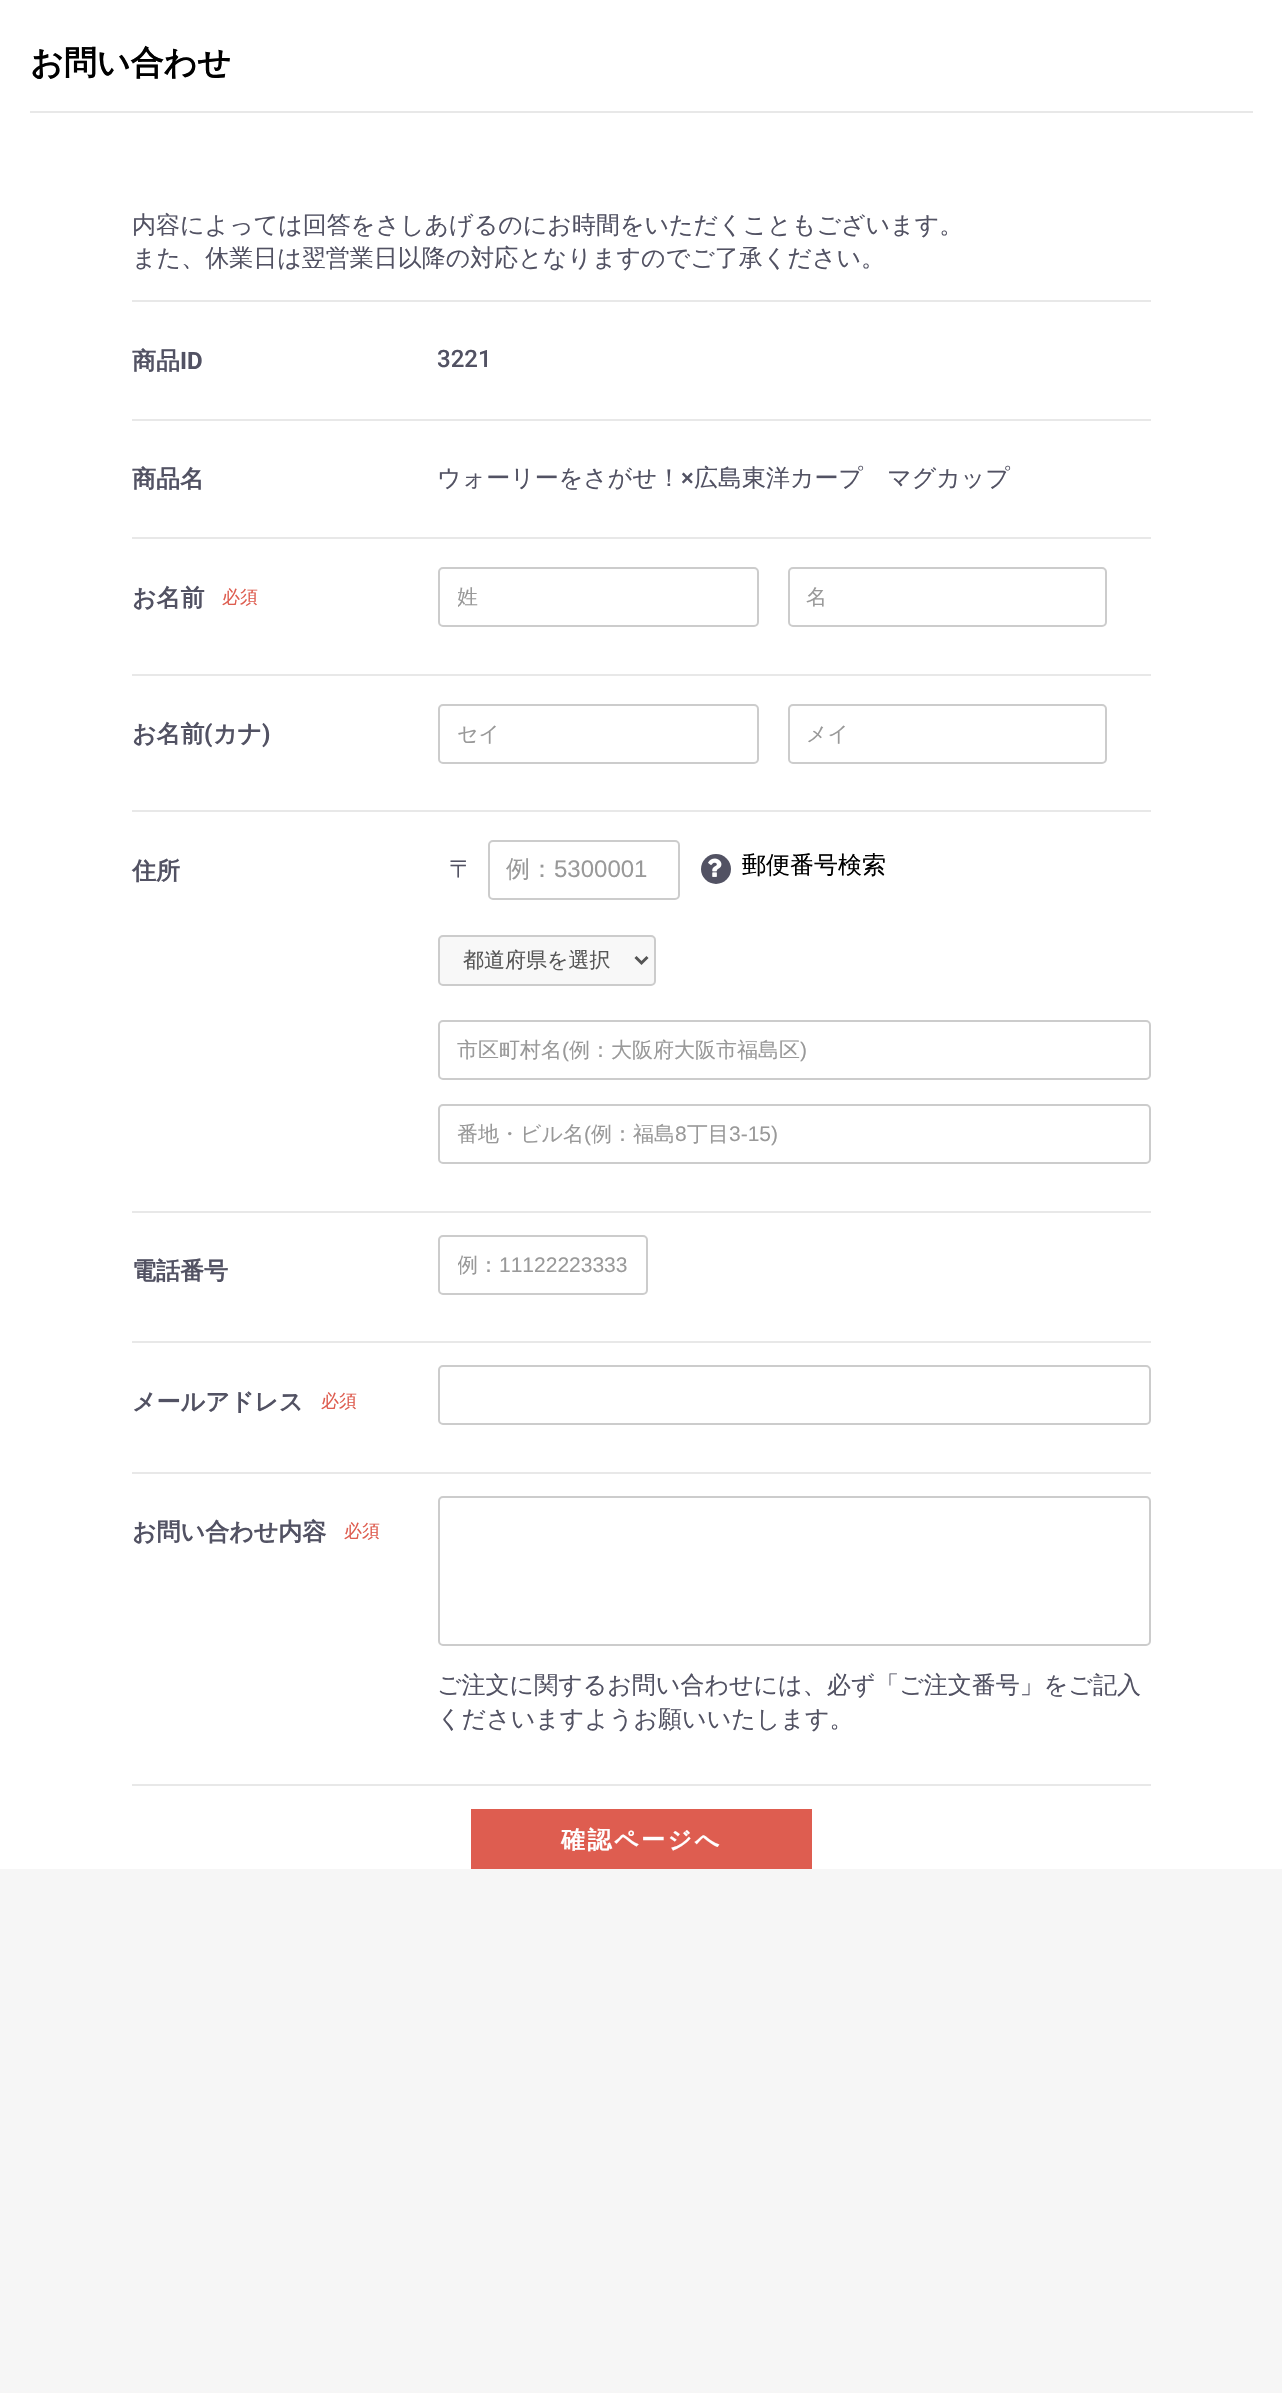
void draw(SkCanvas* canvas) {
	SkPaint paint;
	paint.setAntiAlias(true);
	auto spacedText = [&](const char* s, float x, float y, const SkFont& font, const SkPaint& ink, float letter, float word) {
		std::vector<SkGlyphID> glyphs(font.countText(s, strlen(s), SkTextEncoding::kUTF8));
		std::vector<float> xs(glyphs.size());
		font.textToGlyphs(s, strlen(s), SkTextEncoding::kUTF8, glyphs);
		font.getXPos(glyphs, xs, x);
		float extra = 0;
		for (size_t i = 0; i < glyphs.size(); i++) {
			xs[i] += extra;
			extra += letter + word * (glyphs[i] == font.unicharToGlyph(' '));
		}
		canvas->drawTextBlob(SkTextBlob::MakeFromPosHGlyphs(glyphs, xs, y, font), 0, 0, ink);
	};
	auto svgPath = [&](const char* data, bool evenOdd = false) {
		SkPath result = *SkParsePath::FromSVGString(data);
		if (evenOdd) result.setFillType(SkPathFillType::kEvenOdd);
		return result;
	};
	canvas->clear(0xfff6f6f6);
	paint.setColor(0xffffffff);
	canvas->drawRect(SkRect::MakeXYWH(0, 0, 1282, 1869), paint);
	paint.setColor(0xffe8e8e8);
	canvas->drawRect(SkRect::MakeXYWH(30, 111, 1223, 2), paint);
	SkFont f1(fontMgr->matchFamilyStyle("WenQuanYi Zen Hei", SkFontStyle::Bold()), 33);
	f1.setSubpixel(true);
	paint.setColor(0xff000000);
	canvas->drawString("お問い合わせ", 30, 74, f1, paint);
	SkFont f2(fontMgr->matchFamilyStyle("WenQuanYi Zen Hei", SkFontStyle(500, SkFontStyle::kNormal_Width, SkFontStyle::kUpright_Slant)), 24);
	f2.setSubpixel(true);
	paint.setColor(0xff525263);
	canvas->drawString("内容によっては回答をさしあげるのにお時間をいただくこともございます。", 132, 233, f2, paint);
	canvas->drawString("また、休業日は翌営業日以降の対応となりますのでご了承ください。", 132, 266, f2, paint);
	paint.setColor(0xffe8e8e8);
	canvas->drawRect(SkRect::MakeXYWH(132, 300, 1019, 2), paint);
	canvas->drawRect(SkRect::MakeXYWH(132, 419, 1019, 2), paint);
	SkFont f3(fontMgr->matchFamilyStyle("WenQuanYi Zen Hei", SkFontStyle::Bold()), 24);
	f3.setSubpixel(true);
	paint.setColor(0xff525263);
	canvas->drawString("商品", 132, 369, f3, paint);
	SkFont f4(fontMgr->matchFamilyStyle("Roboto", SkFontStyle::Bold()), 24);
	f4.setSubpixel(true);
	canvas->drawString("ID", 180, 369, f4, paint);
	SkFont f5(fontMgr->matchFamilyStyle("Roboto", SkFontStyle(500, SkFontStyle::kNormal_Width, SkFontStyle::kUpright_Slant)), 24);
	f5.setSubpixel(true);
	canvas->drawString("3221", 437, 367, f5, paint);
	paint.setColor(0xffe8e8e8);
	canvas->drawRect(SkRect::MakeXYWH(132, 537, 1019, 2), paint);
	paint.setColor(0xff525263);
	canvas->drawString("商品名", 132, 487, f3, paint);
	canvas->drawString("ウォーリーをさがせ！", 437, 486, f2, paint);
	canvas->drawString("×", 681, 486, f5, paint);
	canvas->drawString("広島東洋カープ　マグカップ", 694, 486, f2, paint);
	paint.setColor(0xffe8e8e8);
	canvas->drawRect(SkRect::MakeXYWH(132, 674, 1019, 2), paint);
	paint.setColor(0xff525263);
	canvas->drawString("お名前", 132, 606, f3, paint);
	SkFont f6(fontMgr->matchFamilyStyle("WenQuanYi Zen Hei", SkFontStyle(500, SkFontStyle::kNormal_Width, SkFontStyle::kUpright_Slant)), 18);
	f6.setSubpixel(true);
	paint.setColor(0xffde5d50);
	canvas->drawString("必須", 222, 603, f6, paint);
	paint.setStroke(true);
	paint.setStrokeWidth(2);
	paint.setColor(0xffcccccc);
	canvas->drawRoundRect(SkRect::MakeXYWH(439, 568, 319, 58), 4, 4, paint);
	canvas->save();
	canvas->clipRect(SkRect::MakeXYWH(458, 585, 282, 27));
	SkFont f7(fontMgr->matchFamilyStyle("WenQuanYi Zen Hei", SkFontStyle(500, SkFontStyle::kNormal_Width, SkFontStyle::kUpright_Slant)), 21);
	f7.setSubpixel(true);
	paint.setStroke(false);
	paint.setColor(0xff999999);
	canvas->drawString("姓", 457, 604, f7, paint);
	canvas->restore();
	paint.setStroke(true);
	paint.setColor(0xffcccccc);
	canvas->drawRoundRect(SkRect::MakeXYWH(789, 568, 317, 58), 4, 4, paint);
	paint.setStroke(false);
	paint.setColor(0xff999999);
	canvas->drawString("名", 806, 604, f7, paint);
	paint.setColor(0xffe8e8e8);
	canvas->drawRect(SkRect::MakeXYWH(132, 810, 1019, 2), paint);
	paint.setColor(0xff525263);
	canvas->drawString("お名前", 132, 742, f3, paint);
	canvas->drawString("(", 204, 742, f4, paint);
	canvas->drawString("カナ", 213, 742, f3, paint);
	canvas->drawString(")", 262, 742, f4, paint);
	paint.setStroke(true);
	paint.setColor(0xffcccccc);
	canvas->drawRoundRect(SkRect::MakeXYWH(439, 705, 319, 58), 4, 4, paint);
	paint.setStroke(false);
	paint.setColor(0xff999999);
	canvas->drawString("セイ", 457, 741, f7, paint);
	paint.setStroke(true);
	paint.setColor(0xffcccccc);
	canvas->drawRoundRect(SkRect::MakeXYWH(789, 705, 317, 58), 4, 4, paint);
	paint.setStroke(false);
	paint.setColor(0xff999999);
	canvas->drawString("メイ", 806, 741, f7, paint);
	paint.setColor(0xffe8e8e8);
	canvas->drawRect(SkRect::MakeXYWH(132, 1211, 1019, 2), paint);
	paint.setColor(0xff525263);
	canvas->drawString("住所", 132, 879, f3, paint);
	canvas->drawString("〒", 449, 877, f2, paint);
	paint.setStroke(true);
	paint.setColor(0xffcccccc);
	canvas->drawRoundRect(SkRect::MakeXYWH(489, 841, 190, 58), 4, 4, paint);
	paint.setStroke(false);
	paint.setColor(0xff999999);
	canvas->drawString("例：", 506, 877, f2, paint);
	SkFont f8(fontMgr->matchFamilyStyle("Liberation Sans", SkFontStyle::Normal()), 24);
	f8.setSubpixel(true);
	canvas->drawString("5300001", 554, 877, f8, paint);
	paint.setColor(0xff525263);
	canvas->drawCircle(716, 869, 15, paint);
	canvas->drawImageRect(SkImages::DeferredFromEncodedData(SkData::MakeFromFileName("img1.png")), SkRect::MakeXYWH(708, 858, 14, 19), SkSamplingOptions());
	paint.setColor(0xff000000);
	canvas->drawString("郵便番号検索", 742, 873, f2, paint);
	paint.setColor(0xfff8f8f8);
	canvas->drawRoundRect(SkRect::MakeXYWH(439, 936, 216, 49), 4, 4, paint);
	paint.setStroke(true);
	paint.setColor(0xffcccccc);
	canvas->drawRoundRect(SkRect::MakeXYWH(439, 936, 216, 49), 4, 4, paint);
	paint.setStrokeWidth(3);
	paint.setColor(0xff555555);
	canvas->drawPath(svgPath("M635.5 957L641.5 963L647.5 957"), paint);
	paint.setStroke(false);
	canvas->drawString("都道府県を選択", 463, 967, f7, paint);
	paint.setStroke(true);
	paint.setStrokeWidth(2);
	paint.setColor(0xffcccccc);
	canvas->drawRoundRect(SkRect::MakeXYWH(439, 1021, 711, 58), 4, 4, paint);
	paint.setStroke(false);
	paint.setColor(0xff999999);
	canvas->drawString("市区町村名", 457, 1057, f7, paint);
	SkFont f9(fontMgr->matchFamilyStyle("Liberation Sans", SkFontStyle::Normal()), 21);
	f9.setSubpixel(true);
	canvas->drawString("(", 562, 1057, f9, paint);
	canvas->drawString("例：大阪府大阪市福島区", 569, 1057, f7, paint);
	canvas->drawString(")", 800, 1057, f9, paint);
	paint.setStroke(true);
	paint.setColor(0xffcccccc);
	canvas->drawRoundRect(SkRect::MakeXYWH(439, 1105, 711, 58), 4, 4, paint);
	paint.setStroke(false);
	paint.setColor(0xff999999);
	canvas->drawString("番地・ビル名", 457, 1141, f7, paint);
	canvas->drawString("(", 584, 1141, f9, paint);
	canvas->drawString("例：福島", 591, 1141, f7, paint);
	canvas->drawString("8", 675, 1141, f9, paint);
	canvas->drawString("丁目", 687, 1141, f7, paint);
	canvas->drawString("3-15)", 729, 1141, f9, paint);
	paint.setColor(0xffe8e8e8);
	canvas->drawRect(SkRect::MakeXYWH(132, 1341, 1019, 2), paint);
	paint.setColor(0xff525263);
	canvas->drawString("電話番号", 132, 1279, f3, paint);
	paint.setStroke(true);
	paint.setColor(0xffcccccc);
	canvas->drawRoundRect(SkRect::MakeXYWH(439, 1236, 208, 58), 4, 4, paint);
	canvas->save();
	canvas->clipRect(SkRect::MakeXYWH(458, 1253, 171, 27));
	paint.setStroke(false);
	paint.setColor(0xff999999);
	canvas->drawString("例：", 457, 1272, f7, paint);
	canvas->restore();
	canvas->drawString("11122223333", 499, 1272, f9, paint);
	paint.setColor(0xffe8e8e8);
	canvas->drawRect(SkRect::MakeXYWH(132, 1472, 1019, 2), paint);
	paint.setColor(0xff525263);
	canvas->drawString("メールアドレス", 132, 1410, f3, paint);
	paint.setColor(0xffde5d50);
	canvas->drawString("必須", 321, 1407, f6, paint);
	paint.setStroke(true);
	paint.setColor(0xffcccccc);
	canvas->drawRoundRect(SkRect::MakeXYWH(439, 1366, 711, 58), 4, 4, paint);
	paint.setStroke(false);
	paint.setColor(0xffe8e8e8);
	canvas->drawRect(SkRect::MakeXYWH(132, 1784, 1019, 2), paint);
	paint.setColor(0xff525263);
	canvas->drawString("お問い合わせ内容", 132, 1540, f3, paint);
	paint.setColor(0xffde5d50);
	canvas->drawString("必須", 344, 1537, f6, paint);
	paint.setStroke(true);
	paint.setColor(0xffcccccc);
	canvas->drawRoundRect(SkRect::MakeXYWH(439, 1497, 711, 148), 4, 4, paint);
	paint.setStroke(false);
	paint.setColor(0xff525263);
	canvas->drawString("ご注文に関するお問い合わせには、必ず「ご注文番号」をご記入", 437, 1693, f2, paint);
	canvas->drawString("くださいますようお願いいたします。", 437, 1727, f2, paint);
	paint.setColor(0xffde5d50);
	canvas->drawRect(SkRect::MakeXYWH(471, 1809, 341, 60), paint);
	paint.setColor(0xffffffff);
	spacedText("確認ページへ", 561, 1848, f3, paint, 2.5, 0);
}
